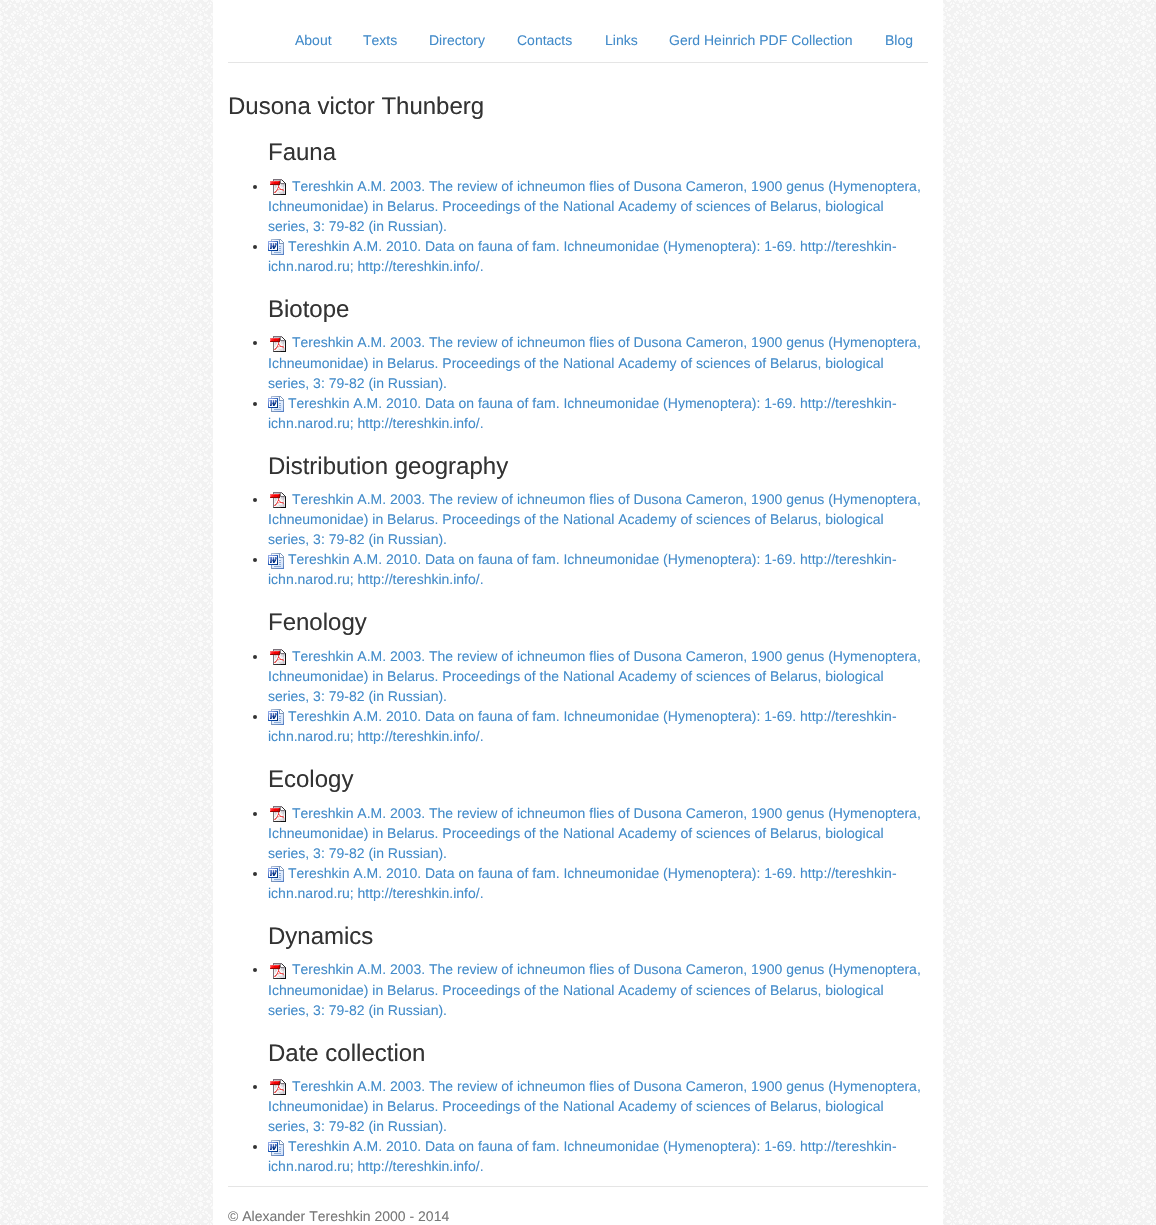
void draw(SkCanvas* canvas) {
	SkPaint paint;
	paint.setAntiAlias(true);
	canvas->clear(0xffffffff);
	canvas->drawImageRect(SkImages::DeferredFromEncodedData(SkData::MakeFromFileName("img1.png")), SkRect::MakeXYWH(0, 0, 1156, 1225), SkSamplingOptions());
	paint.setColor(0xffffffff);
	canvas->drawRect(SkRect::MakeXYWH(213, 0, 730, 1225), paint);
	paint.setColor(0xffe5e5e5);
	canvas->drawRect(SkRect::MakeXYWH(228, 62, 700, 1), paint);
	SkFont f1(fontMgr->matchFamilyStyle("Liberation Sans", SkFontStyle::Normal()), 14);
	f1.setSubpixel(true);
	paint.setColor(0xff428bca);
	canvas->drawString("About", 295, 45, f1, paint);
	canvas->drawString("Texts", 363, 45, f1, paint);
	canvas->drawString("Directory", 429, 45, f1, paint);
	canvas->drawString("Contacts", 517, 45, f1, paint);
	canvas->drawString("Links", 605, 45, f1, paint);
	canvas->drawString("Gerd Heinrich PDF Collection", 669, 45, f1, paint);
	canvas->drawString("Blog", 885, 45, f1, paint);
	SkFont f2(fontMgr->matchFamilyStyle("Liberation Sans", SkFontStyle::Normal()), 24);
	f2.setSubpixel(true);
	paint.setColor(0xff333333);
	canvas->drawString("Dusona victor Thunberg", 228, 114, f2, paint);
	canvas->drawString("Fauna", 268, 160, f2, paint);
	canvas->drawCircle(255, 187, 2, paint);
	canvas->drawImageRect(SkImages::DeferredFromEncodedData(SkData::MakeFromFileName("img2.png")), SkRect::MakeXYWH(270, 179, 16, 16), SkSamplingOptions());
	paint.setColor(0xff428bca);
	canvas->drawString("Tereshkin A.M. 2003. The review of ichneumon flies of Dusona Cameron, 1900 genus (Hymenoptera,", 292, 191, f1, paint);
	canvas->drawString("Ichneumonidae) in Belarus. Proceedings of the National Academy of sciences of Belarus, biological", 268, 211, f1, paint);
	canvas->drawString("series, 3: 79-82 (in Russian).", 268, 231, f1, paint);
	paint.setColor(0xff333333);
	canvas->drawCircle(255, 247, 2, paint);
	canvas->drawImageRect(SkImages::DeferredFromEncodedData(SkData::MakeFromFileName("img3.png")), SkRect::MakeXYWH(268, 239, 16, 16), SkSamplingOptions());
	paint.setColor(0xff428bca);
	canvas->drawString("Tereshkin A.M. 2010. Data on fauna of fam. Ichneumonidae (Hymenoptera): 1-69. http://tereshkin-", 288, 251, f1, paint);
	canvas->drawString("ichn.narod.ru; http://tereshkin.info/.", 268, 271, f1, paint);
	paint.setColor(0xff333333);
	canvas->drawString("Biotope", 268, 317, f2, paint);
	canvas->drawCircle(255, 343, 2, paint);
	canvas->drawImageRect(SkImages::DeferredFromEncodedData(SkData::MakeFromFileName("img2.png")), SkRect::MakeXYWH(270, 336, 16, 16), SkSamplingOptions());
	paint.setColor(0xff428bca);
	canvas->drawString("Tereshkin A.M. 2003. The review of ichneumon flies of Dusona Cameron, 1900 genus (Hymenoptera,", 292, 347, f1, paint);
	canvas->drawString("Ichneumonidae) in Belarus. Proceedings of the National Academy of sciences of Belarus, biological", 268, 368, f1, paint);
	canvas->drawString("series, 3: 79-82 (in Russian).", 268, 388, f1, paint);
	paint.setColor(0xff333333);
	canvas->drawCircle(255, 404, 2, paint);
	canvas->drawImageRect(SkImages::DeferredFromEncodedData(SkData::MakeFromFileName("img3.png")), SkRect::MakeXYWH(268, 396, 16, 16), SkSamplingOptions());
	paint.setColor(0xff428bca);
	canvas->drawString("Tereshkin A.M. 2010. Data on fauna of fam. Ichneumonidae (Hymenoptera): 1-69. http://tereshkin-", 288, 408, f1, paint);
	canvas->drawString("ichn.narod.ru; http://tereshkin.info/.", 268, 428, f1, paint);
	paint.setColor(0xff333333);
	canvas->drawString("Distribution geography", 268, 474, f2, paint);
	canvas->drawCircle(255, 500, 2, paint);
	canvas->drawImageRect(SkImages::DeferredFromEncodedData(SkData::MakeFromFileName("img2.png")), SkRect::MakeXYWH(270, 492, 16, 16), SkSamplingOptions());
	paint.setColor(0xff428bca);
	canvas->drawString("Tereshkin A.M. 2003. The review of ichneumon flies of Dusona Cameron, 1900 genus (Hymenoptera,", 292, 504, f1, paint);
	canvas->drawString("Ichneumonidae) in Belarus. Proceedings of the National Academy of sciences of Belarus, biological", 268, 524, f1, paint);
	canvas->drawString("series, 3: 79-82 (in Russian).", 268, 544, f1, paint);
	paint.setColor(0xff333333);
	canvas->drawCircle(255, 560, 2, paint);
	canvas->drawImageRect(SkImages::DeferredFromEncodedData(SkData::MakeFromFileName("img3.png")), SkRect::MakeXYWH(268, 553, 16, 16), SkSamplingOptions());
	paint.setColor(0xff428bca);
	canvas->drawString("Tereshkin A.M. 2010. Data on fauna of fam. Ichneumonidae (Hymenoptera): 1-69. http://tereshkin-", 288, 564, f1, paint);
	canvas->drawString("ichn.narod.ru; http://tereshkin.info/.", 268, 584, f1, paint);
	paint.setColor(0xff333333);
	canvas->drawString("Fenology", 268, 630, f2, paint);
	canvas->drawCircle(255, 657, 2, paint);
	canvas->drawImageRect(SkImages::DeferredFromEncodedData(SkData::MakeFromFileName("img2.png")), SkRect::MakeXYWH(270, 649, 16, 16), SkSamplingOptions());
	paint.setColor(0xff428bca);
	canvas->drawString("Tereshkin A.M. 2003. The review of ichneumon flies of Dusona Cameron, 1900 genus (Hymenoptera,", 292, 661, f1, paint);
	canvas->drawString("Ichneumonidae) in Belarus. Proceedings of the National Academy of sciences of Belarus, biological", 268, 681, f1, paint);
	canvas->drawString("series, 3: 79-82 (in Russian).", 268, 701, f1, paint);
	paint.setColor(0xff333333);
	canvas->drawCircle(255, 717, 2, paint);
	canvas->drawImageRect(SkImages::DeferredFromEncodedData(SkData::MakeFromFileName("img3.png")), SkRect::MakeXYWH(268, 709, 16, 16), SkSamplingOptions());
	paint.setColor(0xff428bca);
	canvas->drawString("Tereshkin A.M. 2010. Data on fauna of fam. Ichneumonidae (Hymenoptera): 1-69. http://tereshkin-", 288, 721, f1, paint);
	canvas->drawString("ichn.narod.ru; http://tereshkin.info/.", 268, 741, f1, paint);
	paint.setColor(0xff333333);
	canvas->drawString("Ecology", 268, 787, f2, paint);
	canvas->drawCircle(255, 814, 2, paint);
	canvas->drawImageRect(SkImages::DeferredFromEncodedData(SkData::MakeFromFileName("img2.png")), SkRect::MakeXYWH(270, 806, 16, 16), SkSamplingOptions());
	paint.setColor(0xff428bca);
	canvas->drawString("Tereshkin A.M. 2003. The review of ichneumon flies of Dusona Cameron, 1900 genus (Hymenoptera,", 292, 818, f1, paint);
	canvas->drawString("Ichneumonidae) in Belarus. Proceedings of the National Academy of sciences of Belarus, biological", 268, 838, f1, paint);
	canvas->drawString("series, 3: 79-82 (in Russian).", 268, 858, f1, paint);
	paint.setColor(0xff333333);
	canvas->drawCircle(255, 874, 2, paint);
	canvas->drawImageRect(SkImages::DeferredFromEncodedData(SkData::MakeFromFileName("img3.png")), SkRect::MakeXYWH(268, 866, 16, 16), SkSamplingOptions());
	paint.setColor(0xff428bca);
	canvas->drawString("Tereshkin A.M. 2010. Data on fauna of fam. Ichneumonidae (Hymenoptera): 1-69. http://tereshkin-", 288, 878, f1, paint);
	canvas->drawString("ichn.narod.ru; http://tereshkin.info/.", 268, 898, f1, paint);
	paint.setColor(0xff333333);
	canvas->drawString("Dynamics", 268, 944, f2, paint);
	canvas->drawCircle(255, 970, 2, paint);
	canvas->drawImageRect(SkImages::DeferredFromEncodedData(SkData::MakeFromFileName("img2.png")), SkRect::MakeXYWH(270, 963, 16, 16), SkSamplingOptions());
	paint.setColor(0xff428bca);
	canvas->drawString("Tereshkin A.M. 2003. The review of ichneumon flies of Dusona Cameron, 1900 genus (Hymenoptera,", 292, 974, f1, paint);
	canvas->drawString("Ichneumonidae) in Belarus. Proceedings of the National Academy of sciences of Belarus, biological", 268, 995, f1, paint);
	canvas->drawString("series, 3: 79-82 (in Russian).", 268, 1015, f1, paint);
	paint.setColor(0xff333333);
	canvas->drawString("Date collection", 268, 1061, f2, paint);
	canvas->drawCircle(255, 1087, 2, paint);
	canvas->drawImageRect(SkImages::DeferredFromEncodedData(SkData::MakeFromFileName("img2.png")), SkRect::MakeXYWH(270, 1079, 16, 16), SkSamplingOptions());
	paint.setColor(0xff428bca);
	canvas->drawString("Tereshkin A.M. 2003. The review of ichneumon flies of Dusona Cameron, 1900 genus (Hymenoptera,", 292, 1091, f1, paint);
	canvas->drawString("Ichneumonidae) in Belarus. Proceedings of the National Academy of sciences of Belarus, biological", 268, 1111, f1, paint);
	canvas->drawString("series, 3: 79-82 (in Russian).", 268, 1131, f1, paint);
	paint.setColor(0xff333333);
	canvas->drawCircle(255, 1147, 2, paint);
	canvas->drawImageRect(SkImages::DeferredFromEncodedData(SkData::MakeFromFileName("img3.png")), SkRect::MakeXYWH(268, 1140, 16, 16), SkSamplingOptions());
	paint.setColor(0xff428bca);
	canvas->drawString("Tereshkin A.M. 2010. Data on fauna of fam. Ichneumonidae (Hymenoptera): 1-69. http://tereshkin-", 288, 1151, f1, paint);
	canvas->drawString("ichn.narod.ru; http://tereshkin.info/.", 268, 1171, f1, paint);
	paint.setColor(0xffe5e5e5);
	canvas->drawRect(SkRect::MakeXYWH(228, 1186, 700, 1), paint);
	paint.setColor(0xff777777);
	canvas->drawString("© Alexander Tereshkin 2000 - 2014", 228, 1221, f1, paint);
}
